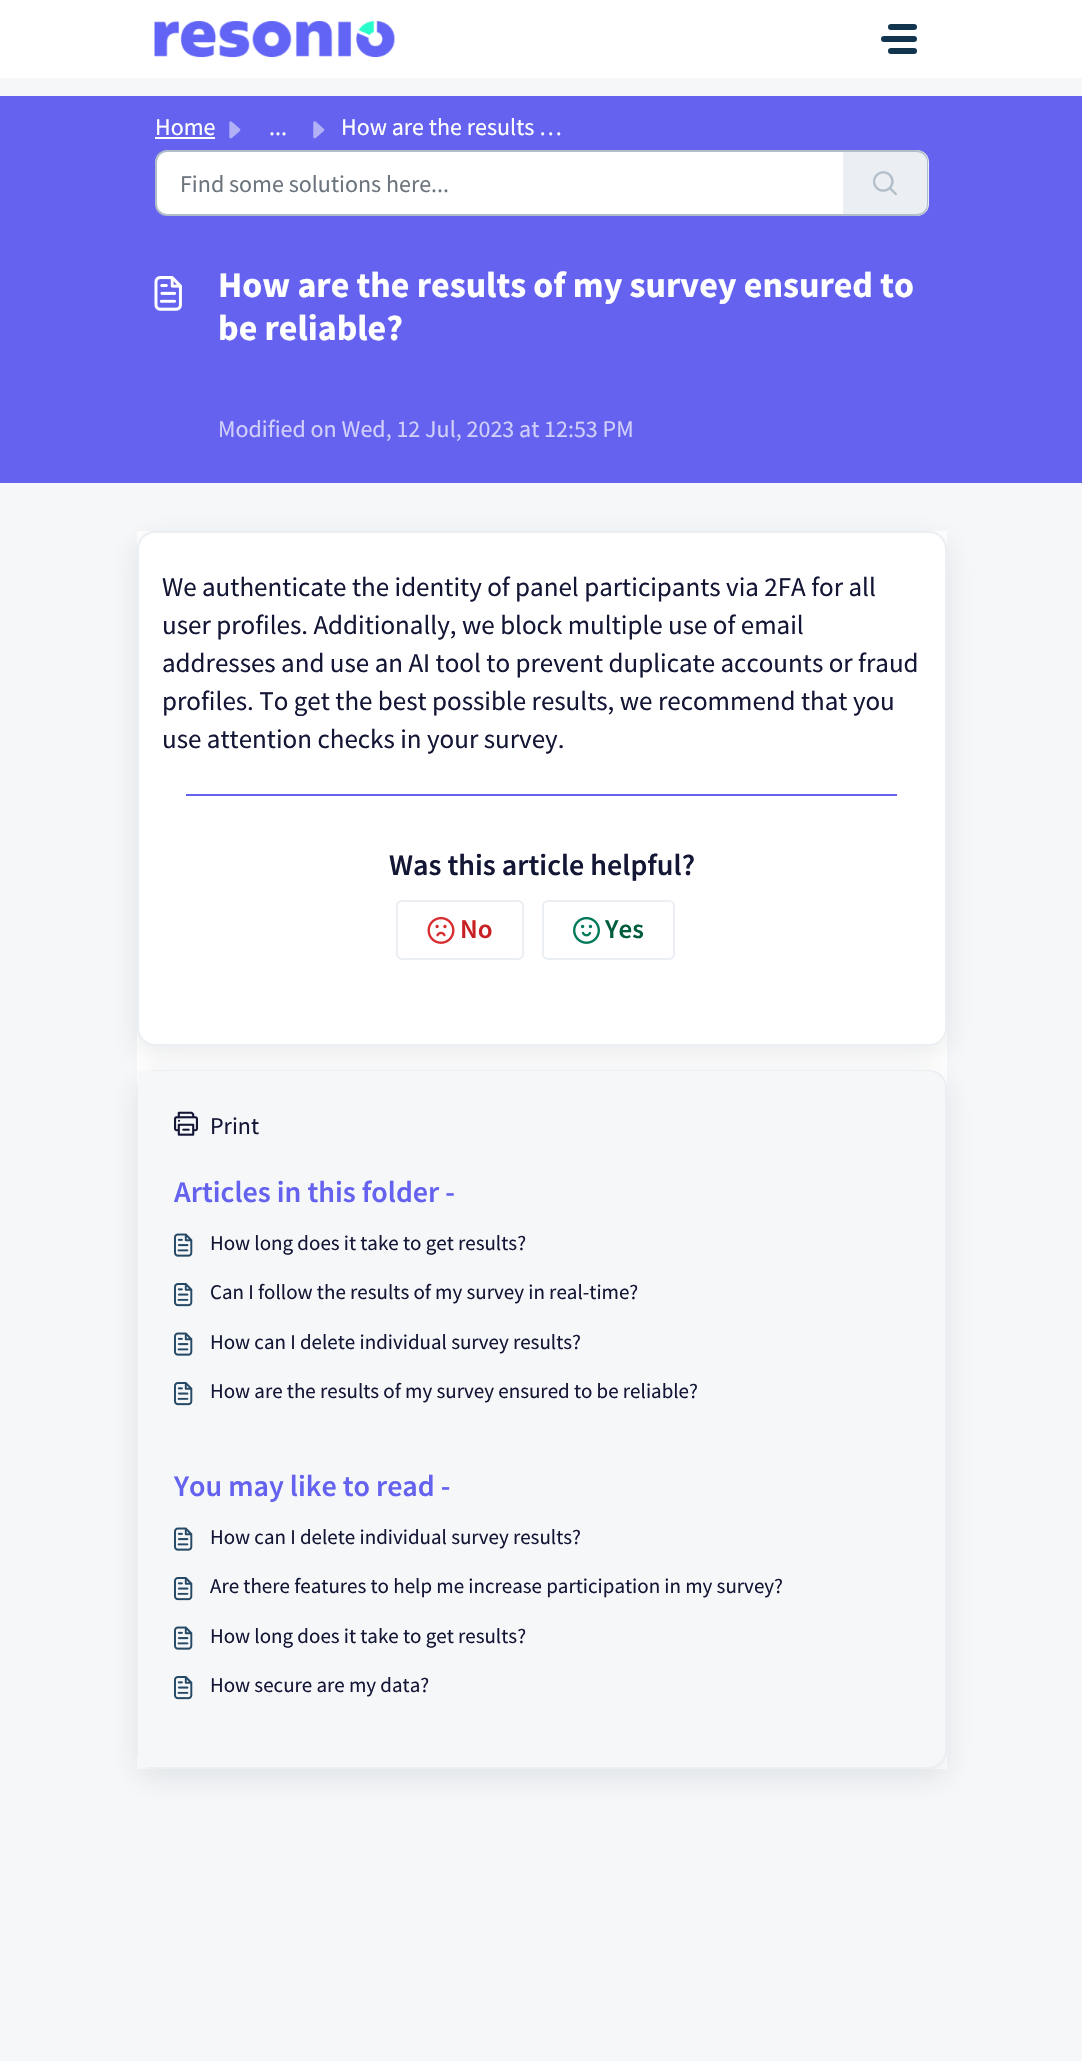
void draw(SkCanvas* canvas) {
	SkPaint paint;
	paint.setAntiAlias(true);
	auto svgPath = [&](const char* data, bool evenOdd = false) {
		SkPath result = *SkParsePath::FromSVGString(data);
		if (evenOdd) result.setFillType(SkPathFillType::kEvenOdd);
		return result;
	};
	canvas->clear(0xfff5f7f9);
	paint.setColor(0xffffffff);
	canvas->drawRect(SkRect::MakeXYWH(0, 0, 1082, 78), paint);
	canvas->drawImageRect(SkImages::DeferredFromEncodedData(SkData::MakeFromFileName("img1.png")), SkRect::MakeXYWH(154, 21, 241, 37), SkSamplingOptions());
	paint.setColor(0xff12344d);
	canvas->drawRoundRect(SkRect::MakeXYWH(888, 24, 29, 6), 3, 3, paint);
	canvas->drawRoundRect(SkRect::MakeXYWH(881, 36, 36, 6), 3, 3, paint);
	canvas->drawRoundRect(SkRect::MakeXYWH(888, 48, 29, 6), 3, 3, paint);
	paint.setColor(0xff6462ef);
	canvas->drawRect(SkRect::MakeXYWH(0, 96, 1082, 387), paint);
	SkFont f1(fontMgr->matchFamilyStyle("Source Sans Pro", SkFontStyle::Normal()), 24);
	f1.setSubpixel(true);
	paint.setColor(0xffffffff);
	canvas->drawString("Home", 155, 135, f1, paint);
	canvas->drawRect(SkRect::MakeXYWH(155, 137, 60, 2), paint);
	canvas->drawImageRect(SkImages::DeferredFromEncodedData(SkData::MakeFromFileName("img2.png")), SkRect::MakeXYWH(229, 121, 12, 18), SkSamplingOptions());
	canvas->drawString("...", 269, 135, f1, paint);
	canvas->drawImageRect(SkImages::DeferredFromEncodedData(SkData::MakeFromFileName("img3.png")), SkRect::MakeXYWH(313, 121, 12, 18), SkSamplingOptions());
	canvas->drawString("How are the results …", 341, 135, f1, paint);
	canvas->drawPath(svgPath("M167 151H844V215H167C161 215 156 210 156 204V162C156 156 161 151 167 151Z"), paint);
	paint.setStroke(true);
	paint.setStrokeWidth(2);
	paint.setColor(0xffb1bdc8);
	canvas->drawPath(svgPath("M167 151H844V215H167C161 215 156 210 156 204V162C156 156 161 151 167 151Z"), paint);
	paint.setStroke(false);
	paint.setColor(0xff6c757d);
	canvas->drawString("Find some solutions here...", 180, 192, f1, paint);
	paint.setColor(0xffebeff3);
	canvas->drawPath(svgPath("M843 150H917C923.5 150 929 155.5 929 162V204C929 210.5 923.5 216 917 216H843Z"), paint);
	paint.setColor(0xffb1bdc8);
	canvas->drawPath(svgPath("M843 150H916C923 150 928 155 928 162V204C928 211 923 216 916 216H843ZM843 152H916C922 152 927 156 927 162V204C927 210 922 214 916 214H843Z", true), paint);
	canvas->drawImageRect(SkImages::DeferredFromEncodedData(SkData::MakeFromFileName("img4.png")), SkRect::MakeXYWH(873, 171, 24, 25), SkSamplingOptions());
	canvas->drawImageRect(SkImages::DeferredFromEncodedData(SkData::MakeFromFileName("img5.png")), SkRect::MakeXYWH(154, 276, 28, 35), SkSamplingOptions());
	SkFont f2(fontMgr->matchFamilyStyle("Source Sans Pro", SkFontStyle::Bold()), 36);
	f2.setSubpixel(true);
	paint.setColor(0xffffffff);
	canvas->drawString("How are the results of my survey ensured to", 218, 297, f2, paint);
	canvas->drawString("be reliable?", 218, 340, f2, paint);
	paint.setColor(0xffd1d0fa);
	canvas->drawString("Modified on Wed, 12 Jul, 2023 at 12:53 PM", 218, 437, f1, paint);
	paint.setColor(0xffffffff);
	canvas->drawRect(SkRect::MakeXYWH(137, 531, 810, 1238), paint);
	canvas->save();
	canvas->clipPath(svgPath("M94 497H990V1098H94ZM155 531H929C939 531 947 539 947 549V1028C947 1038 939 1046 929 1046H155C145 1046 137 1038 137 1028V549C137 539 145 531 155 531Z", true), true);
	paint.setColor(0x1a27313a);
	paint.setMaskFilter(SkMaskFilter::MakeBlur(kNormal_SkBlurStyle, 14));
	canvas->drawRoundRect(SkRect::MakeXYWH(137, 540, 810, 515), 18, 18, paint);
	paint.setMaskFilter(nullptr);
	canvas->restore();
	paint.setStroke(true);
	paint.setColor(0xffebeff3);
	canvas->drawRoundRect(SkRect::MakeXYWH(138, 532, 808, 513), 17, 17, paint);
	SkFont f3(fontMgr->matchFamilyStyle("Source Sans Pro", SkFontStyle::Normal()), 27);
	f3.setSubpixel(true);
	paint.setStroke(false);
	paint.setColor(0xff141636);
	canvas->drawString("We authenticate the identity of panel participants via 2FA for all", 162, 596, f3, paint);
	canvas->drawString("user profiles. Additionally, we block multiple use of email", 162, 634, f3, paint);
	canvas->drawString("addresses and use an AI tool to prevent duplicate accounts or fraud", 162, 672, f3, paint);
	canvas->drawString("profiles. To get the best possible results, we recommend that you", 162, 710, f3, paint);
	canvas->drawString("use attention checks in your survey.", 162, 748, f3, paint);
	paint.setColor(0xff6462ef);
	canvas->drawRect(SkRect::MakeXYWH(186, 794, 711, 2), paint);
	SkFont f4(fontMgr->matchFamilyStyle("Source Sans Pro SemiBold", SkFontStyle(600, SkFontStyle::kNormal_Width, SkFontStyle::kUpright_Slant)), 30);
	f4.setSubpixel(true);
	paint.setColor(0xff141636);
	canvas->drawString("Was this article helpful?", 389, 875, f4, paint);
	paint.setStroke(true);
	paint.setColor(0xffebeff3);
	canvas->drawRoundRect(SkRect::MakeXYWH(397, 901, 126, 58), 5, 5, paint);
	canvas->drawImageRect(SkImages::DeferredFromEncodedData(SkData::MakeFromFileName("img6.png")), SkRect::MakeXYWH(427, 916, 28, 28), SkSamplingOptions());
	SkFont f5(fontMgr->matchFamilyStyle("Source Sans Pro SemiBold", SkFontStyle(600, SkFontStyle::kNormal_Width, SkFontStyle::kUpright_Slant)), 27);
	f5.setSubpixel(true);
	paint.setStroke(false);
	paint.setColor(0xffc82124);
	canvas->drawString("No", 460, 938, f5, paint);
	paint.setStroke(true);
	paint.setColor(0xffebeff3);
	canvas->drawRoundRect(SkRect::MakeXYWH(543, 901, 131, 58), 5, 5, paint);
	canvas->drawImageRect(SkImages::DeferredFromEncodedData(SkData::MakeFromFileName("img7.png")), SkRect::MakeXYWH(573, 916, 27, 28), SkSamplingOptions());
	paint.setStroke(false);
	paint.setColor(0xff005c3f);
	canvas->drawString("Yes", 605, 938, f5, paint);
	paint.setColor(0x1a27313a);
	paint.setMaskFilter(SkMaskFilter::MakeBlur(kNormal_SkBlurStyle, 14));
	canvas->drawRoundRect(SkRect::MakeXYWH(137, 1079, 810, 699), 18, 18, paint);
	paint.setMaskFilter(nullptr);
	paint.setStroke(true);
	paint.setColor(0xffebeff3);
	canvas->drawRoundRect(SkRect::MakeXYWH(138, 1071, 808, 697), 17, 17, paint);
	paint.setStroke(false);
	paint.setColor(0xfff5f7f9);
	canvas->drawPath(svgPath("M138 1071H927C937 1071 945 1079 945 1089V1749C945 1759 937 1767 927 1767H138Z"), paint);
	canvas->drawImageRect(SkImages::DeferredFromEncodedData(SkData::MakeFromFileName("img8.png")), SkRect::MakeXYWH(174, 1111, 24, 25), SkSamplingOptions());
	paint.setColor(0xff141636);
	canvas->drawString("Print", 210, 1134, f1, paint);
	paint.setColor(0xff6462ef);
	canvas->drawString("Articles in this folder -", 174, 1202, f4, paint);
	canvas->drawImageRect(SkImages::DeferredFromEncodedData(SkData::MakeFromFileName("img9.png")), SkRect::MakeXYWH(174, 1233, 19, 24), SkSamplingOptions());
	SkFont f6(fontMgr->matchFamilyStyle("Source Sans Pro", SkFontStyle::Normal()), 21);
	f6.setSubpixel(true);
	paint.setColor(0xff141636);
	canvas->drawString("How long does it take to get results?", 210, 1250, f6, paint);
	canvas->drawImageRect(SkImages::DeferredFromEncodedData(SkData::MakeFromFileName("img10.png")), SkRect::MakeXYWH(174, 1283, 19, 24), SkSamplingOptions());
	canvas->drawString("Can I follow the results of my survey in real-time?", 210, 1299, f6, paint);
	canvas->drawImageRect(SkImages::DeferredFromEncodedData(SkData::MakeFromFileName("img9.png")), SkRect::MakeXYWH(174, 1332, 19, 24), SkSamplingOptions());
	canvas->drawString("How can I delete individual survey results?", 210, 1349, f6, paint);
	canvas->drawImageRect(SkImages::DeferredFromEncodedData(SkData::MakeFromFileName("img10.png")), SkRect::MakeXYWH(174, 1382, 19, 24), SkSamplingOptions());
	canvas->drawString("How are the results of my survey ensured to be reliable?", 210, 1398, f6, paint);
	paint.setColor(0xff6462ef);
	canvas->drawString("You may like to read -", 174, 1496, f4, paint);
	canvas->drawImageRect(SkImages::DeferredFromEncodedData(SkData::MakeFromFileName("img9.png")), SkRect::MakeXYWH(174, 1527, 19, 24), SkSamplingOptions());
	paint.setColor(0xff141636);
	canvas->drawString("How can I delete individual survey results?", 210, 1544, f6, paint);
	canvas->drawImageRect(SkImages::DeferredFromEncodedData(SkData::MakeFromFileName("img10.png")), SkRect::MakeXYWH(174, 1577, 19, 24), SkSamplingOptions());
	canvas->drawString("Are there features to help me increase participation in my survey?", 210, 1593, f6, paint);
	canvas->drawImageRect(SkImages::DeferredFromEncodedData(SkData::MakeFromFileName("img9.png")), SkRect::MakeXYWH(174, 1626, 19, 24), SkSamplingOptions());
	canvas->drawString("How long does it take to get results?", 210, 1643, f6, paint);
	canvas->drawImageRect(SkImages::DeferredFromEncodedData(SkData::MakeFromFileName("img10.png")), SkRect::MakeXYWH(174, 1676, 19, 24), SkSamplingOptions());
	canvas->drawString("How secure are my data?", 210, 1692, f6, paint);
}
